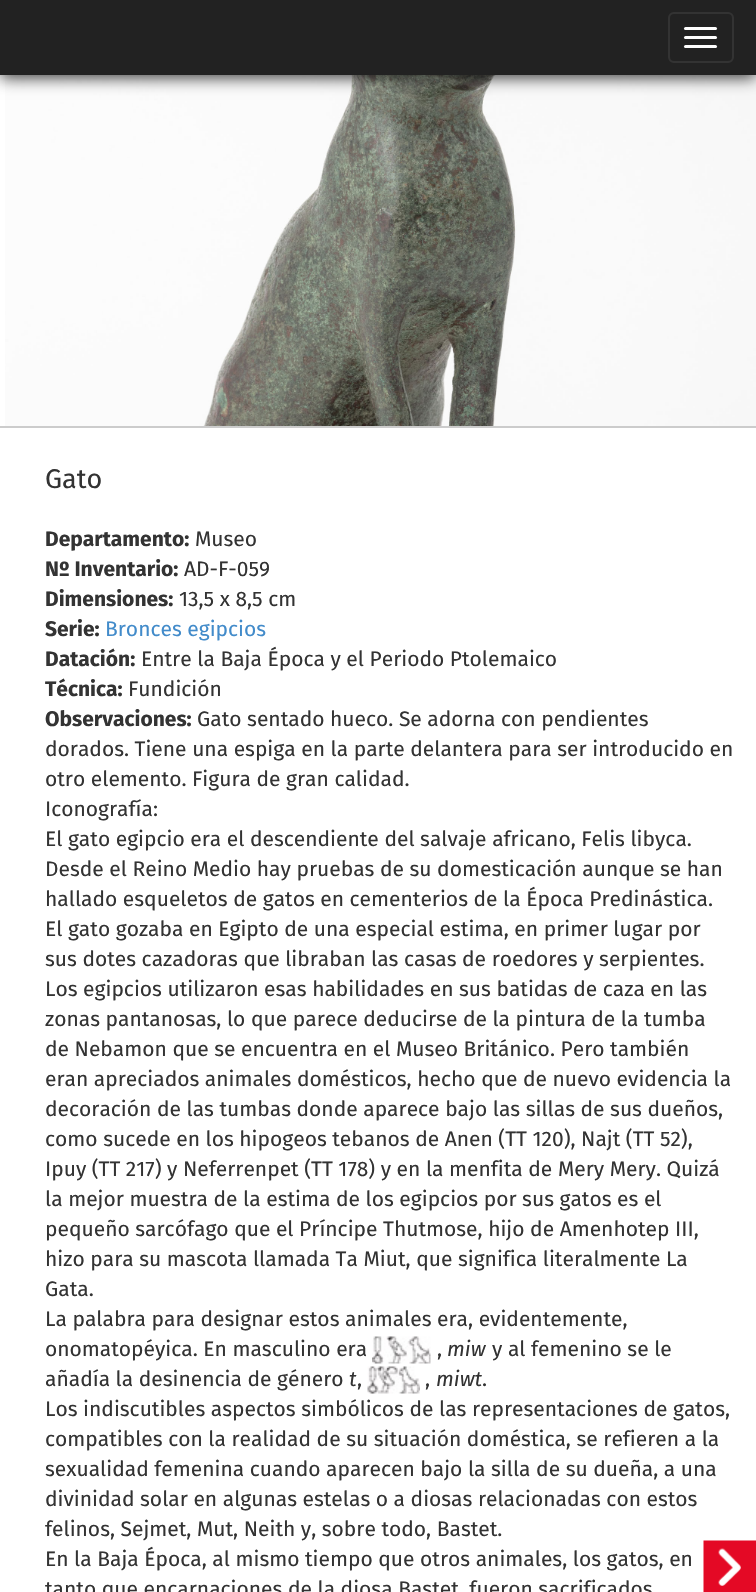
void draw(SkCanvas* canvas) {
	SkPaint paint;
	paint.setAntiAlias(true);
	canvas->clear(0xffffffff);
	canvas->drawImageRect(SkImages::DeferredFromEncodedData(SkData::MakeFromFileName("img1.png")), SkRect::MakeXYWH(5, 75, 751, 351), SkSamplingOptions());
	paint.setColor(0xbf000000);
	paint.setMaskFilter(SkMaskFilter::MakeBlur(kNormal_SkBlurStyle, 7.5));
	canvas->drawRect(SkRect::MakeXYWH(0, 3, 756, 75), paint);
	paint.setMaskFilter(nullptr);
	paint.setColor(0xff222222);
	canvas->drawRect(SkRect::MakeXYWH(0, 0, 756, 75), paint);
	paint.setStroke(true);
	paint.setStrokeWidth(2);
	paint.setColor(0xff333333);
	canvas->drawRoundRect(SkRect::MakeXYWH(669, 13, 64, 49), 5, 5, paint);
	paint.setStroke(false);
	paint.setColor(0xffffffff);
	canvas->drawRoundRect(SkRect::MakeXYWH(684, 27, 33, 3), 1.5, 1.5, paint);
	canvas->drawRoundRect(SkRect::MakeXYWH(684, 36, 33, 3), 1.5, 1.5, paint);
	canvas->drawRoundRect(SkRect::MakeXYWH(684, 45, 33, 3), 1.5, 1.5, paint);
	paint.setColor(0xffcccccc);
	canvas->drawRect(SkRect::MakeXYWH(0, 426, 756, 2), paint);
	SkFont f1(fontMgr->matchFamilyStyle("Fira Sans", SkFontStyle::Normal()), 27);
	f1.setSubpixel(true);
	paint.setColor(0xff333333);
	canvas->drawString("Gato", 45, 488, f1, paint);
	SkFont f2(fontMgr->matchFamilyStyle("Fira Sans", SkFontStyle::Bold()), 21);
	f2.setSubpixel(true);
	canvas->drawString("Departamento:", 45, 546, f2, paint);
	SkFont f3(fontMgr->matchFamilyStyle("Fira Sans", SkFontStyle::Normal()), 21);
	f3.setSubpixel(true);
	canvas->drawString("Museo", 195, 546, f3, paint);
	canvas->drawString("Nº Inventario:", 45, 576, f2, paint);
	canvas->drawString("AD-F-059", 184, 576, f3, paint);
	canvas->drawString("Dimensiones:", 45, 606, f2, paint);
	canvas->drawString("13,5 x 8,5 cm", 179, 606, f3, paint);
	canvas->drawString("Serie:", 45, 636, f2, paint);
	paint.setColor(0xff428bca);
	canvas->drawString("Bronces egipcios", 105, 636, f3, paint);
	paint.setColor(0xff333333);
	canvas->drawString("Datación:", 45, 666, f2, paint);
	canvas->drawString("Entre la Baja Época y el Periodo Ptolemaico", 141, 666, f3, paint);
	canvas->drawString("Técnica:", 45, 696, f2, paint);
	canvas->drawString("Fundición", 128, 696, f3, paint);
	canvas->drawString("Observaciones:", 45, 726, f2, paint);
	canvas->drawString("Gato sentado hueco. Se adorna con pendientes", 197, 726, f3, paint);
	canvas->drawString("dorados. Tiene una espiga en la parte delantera para ser introducido en", 45, 756, f3, paint);
	canvas->drawString("otro elemento. Figura de gran calidad.", 45, 786, f3, paint);
	canvas->drawString("Iconografía:", 45, 816, f3, paint);
	canvas->drawString("El gato egipcio era el descendiente del salvaje africano, Felis libyca.", 45, 846, f3, paint);
	canvas->drawString("Desde el Reino Medio hay pruebas de su domesticación aunque se han", 45, 876, f3, paint);
	canvas->drawString("hallado esqueletos de gatos en cementerios de la Época Predinástica.", 45, 906, f3, paint);
	canvas->drawString("El gato gozaba en Egipto de una especial estima, en primer lugar por", 45, 936, f3, paint);
	canvas->drawString("sus dotes cazadoras que libraban las casas de roedores y serpientes.", 45, 966, f3, paint);
	canvas->drawString("Los egipcios utilizaron esas habilidades en sus batidas de caza en las", 45, 996, f3, paint);
	canvas->drawString("zonas pantanosas, lo que parece deducirse de la pintura de la tumba", 45, 1026, f3, paint);
	canvas->drawString("de Nebamon que se encuentra en el Museo Británico. Pero también", 45, 1056, f3, paint);
	canvas->drawString("eran apreciados animales domésticos, hecho que de nuevo evidencia la", 45, 1086, f3, paint);
	canvas->drawString("decoración de las tumbas donde aparece bajo las sillas de sus dueños,", 45, 1116, f3, paint);
	canvas->drawString("como sucede en los hipogeos tebanos de Anen (TT 120), Najt (TT 52),", 45, 1146, f3, paint);
	canvas->drawString("Ipuy (TT 217) y Neferrenpet (TT 178) y en la menfita de Mery Mery. Quizá", 45, 1176, f3, paint);
	canvas->drawString("la mejor muestra de la estima de los egipcios por sus gatos es el", 45, 1206, f3, paint);
	canvas->drawString("pequeño sarcófago que el Príncipe Thutmose, hijo de Amenhotep III,", 45, 1236, f3, paint);
	canvas->drawString("hizo para su mascota llamada Ta Miut, que significa literalmente La", 45, 1266, f3, paint);
	canvas->drawString("Gata.", 45, 1296, f3, paint);
	canvas->drawString("La palabra para designar estos animales era, evidentemente,", 45, 1326, f3, paint);
	canvas->drawString("onomatopéyica. En masculino era", 45, 1356, f3, paint);
	canvas->drawImageRect(SkImages::DeferredFromEncodedData(SkData::MakeFromFileName("img2.png")), SkRect::MakeXYWH(372, 1336, 59, 28), SkSamplingOptions());
	canvas->drawString(",", 437, 1356, f3, paint);
	SkFont f4(fontMgr->matchFamilyStyle("Fira Sans", SkFontStyle::Italic()), 21);
	f4.setSubpixel(true);
	canvas->drawString("miw", 447, 1356, f4, paint);
	canvas->drawString("y al femenino se le", 492, 1356, f3, paint);
	canvas->drawString("añadía la desinencia de género", 45, 1386, f3, paint);
	canvas->drawString("t", 349, 1386, f4, paint);
	canvas->drawString(",", 357, 1386, f3, paint);
	canvas->drawImageRect(SkImages::DeferredFromEncodedData(SkData::MakeFromFileName("img3.png")), SkRect::MakeXYWH(367, 1366, 53, 28), SkSamplingOptions());
	canvas->drawString(",", 425, 1386, f3, paint);
	canvas->drawString("miwt", 436, 1386, f4, paint);
	canvas->drawString(".", 482, 1386, f3, paint);
	canvas->drawString("Los indiscutibles aspectos simbólicos de las representaciones de gatos,", 45, 1416, f3, paint);
	canvas->drawString("compatibles con la realidad de su situación doméstica, se refieren a la", 45, 1446, f3, paint);
	canvas->drawString("sexualidad femenina cuando aparecen bajo la silla de su dueña, a una", 45, 1476, f3, paint);
	canvas->drawString("divinidad solar en algunas estelas o a diosas relacionadas con estos", 45, 1506, f3, paint);
	canvas->drawString("felinos, Sejmet, Mut, Neith y, sobre todo, Bastet.", 45, 1536, f3, paint);
	canvas->drawString("En la Baja Época, al mismo tiempo que otros animales, los gatos, en", 45, 1566, f3, paint);
	canvas->drawString("tanto que encarnaciones de la diosa Bastet, fueron sacrificados", 45, 1596, f3, paint);
	canvas->drawImageRect(SkImages::DeferredFromEncodedData(SkData::MakeFromFileName("img4.png")), SkRect::MakeXYWH(703, 1540, 53, 52), SkSamplingOptions());
}
